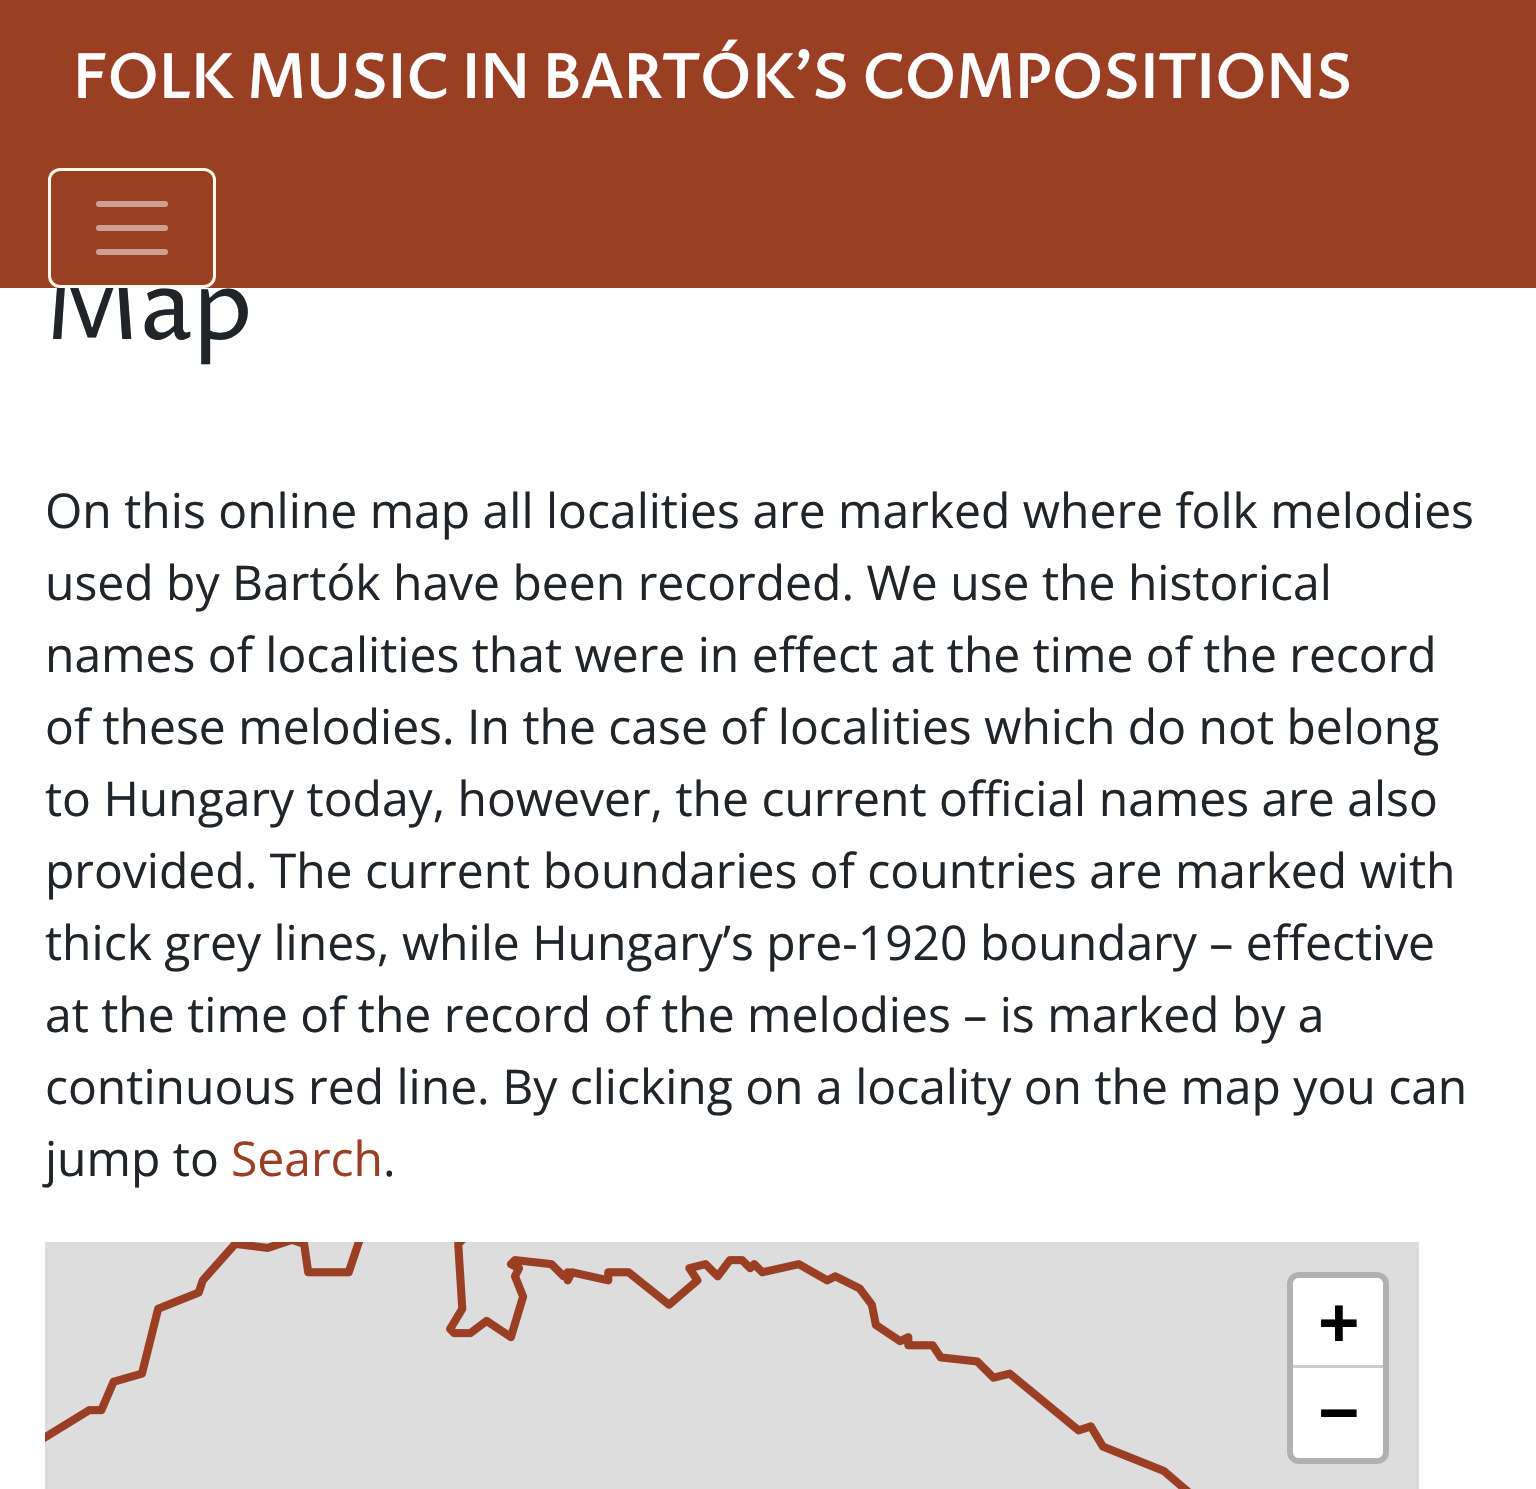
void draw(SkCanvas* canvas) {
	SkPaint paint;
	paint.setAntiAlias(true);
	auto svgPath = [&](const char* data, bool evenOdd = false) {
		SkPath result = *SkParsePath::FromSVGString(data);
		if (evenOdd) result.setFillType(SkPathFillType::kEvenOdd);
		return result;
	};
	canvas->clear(0xffffffff);
	SkFont f1(fontMgr->matchFamilyStyle("Proza Libre", SkFontStyle::Normal()), 96);
	f1.setSubpixel(true);
	paint.setColor(0xff212529);
	canvas->drawString("Map", 45, 339, f1, paint);
	paint.setColor(0xff9a3f24);
	canvas->drawRect(SkRect::MakeXYWH(0, 0, 1536, 288), paint);
	SkFont f2(fontMgr->matchFamilyStyle("Proza Libre", SkFontStyle::Bold()), 60);
	f2.setSubpixel(true);
	paint.setColor(0xffffffff);
	canvas->drawString("FOLK MUSIC IN BARTÓK'S COMPOSITIONS", 72, 98, f2, paint);
	paint.setStroke(true);
	paint.setStrokeWidth(3);
	paint.setColor(0xfffff9eb);
	canvas->drawRoundRect(SkRect::MakeXYWH(49.5, 169.5, 165, 117), 10.5, 10.5, paint);
	paint.setStrokeWidth(6);
	paint.setStrokeCap(SkPaint::kRound_Cap);
	paint.setColor(0xffcd9f92);
	canvas->drawPath(svgPath("M99 204H165M99 228H165M99 252H165"), paint);
	SkFont f3(fontMgr->matchFamilyStyle("Open Sans", SkFontStyle::Normal()), 48);
	f3.setSubpixel(true);
	paint.setStroke(false);
	paint.setColor(0xff212529);
	canvas->drawString("On this online map all localities are marked where folk melodies", 45, 528, f3, paint);
	canvas->drawString("used by Bartók have been recorded. We use the historical", 45, 600, f3, paint);
	canvas->drawString("names of localities that were in effect at the time of the record", 45, 672, f3, paint);
	canvas->drawString("of these melodies. In the case of localities which do not belong", 45, 744, f3, paint);
	canvas->drawString("to Hungary today, however, the current official names are also", 45, 816, f3, paint);
	canvas->drawString("provided. The current boundaries of countries are marked with", 45, 888, f3, paint);
	canvas->drawString("thick grey lines, while Hungary’s pre-1920 boundary – effective", 45, 960, f3, paint);
	canvas->drawString("at the time of the record of the melodies – is marked by a", 45, 1032, f3, paint);
	canvas->drawString("continuous red line. By clicking on a locality on the map you can", 45, 1104, f3, paint);
	canvas->drawString("jump to", 45, 1176, f3, paint);
	paint.setColor(0xff9a3f24);
	canvas->drawString("Search", 231, 1176, f3, paint);
	paint.setColor(0xff212529);
	canvas->drawString(".", 383, 1176, f3, paint);
	paint.setColor(0xffdddddd);
	canvas->drawRect(SkRect::MakeXYWH(45, 1242, 1374, 247), paint);
	canvas->drawImageRect(SkImages::DeferredFromEncodedData(SkData::MakeFromFileName("img1.png")), SkRect::MakeXYWH(45, 1242, 1146, 247), SkSamplingOptions());
	paint.setStroke(true);
	paint.setStrokeCap(SkPaint::kButt_Cap);
	paint.setColor(0xffb1b1b1);
	canvas->drawRoundRect(SkRect::MakeXYWH(1290, 1275, 96, 186), 9, 9, paint);
	paint.setStroke(false);
	paint.setColor(0xffffffff);
	canvas->drawPath(svgPath("M1299 1278H1377C1380.5 1278 1383 1280.5 1383 1284V1368H1293V1284C1293 1280.5 1295.5 1278 1299 1278Z"), paint);
	paint.setColor(0xffcccccc);
	canvas->drawRect(SkRect::MakeXYWH(1293, 1365, 90, 3), paint);
	SkFont f4(fontMgr->matchFamilyStyle("DejaVu Sans Mono", SkFontStyle::Bold()), 66);
	f4.setSubpixel(true);
	paint.setColor(0xff000000);
	canvas->drawString("+", 1319, 1344, f4, paint);
	paint.setColor(0xffffffff);
	canvas->drawPath(svgPath("M1293 1368H1383V1452C1383 1455.5 1380.5 1458 1377 1458H1299C1295.5 1458 1293 1455.5 1293 1452Z"), paint);
	paint.setColor(0xff000000);
	canvas->drawString("−", 1319, 1434, f4, paint);
}
